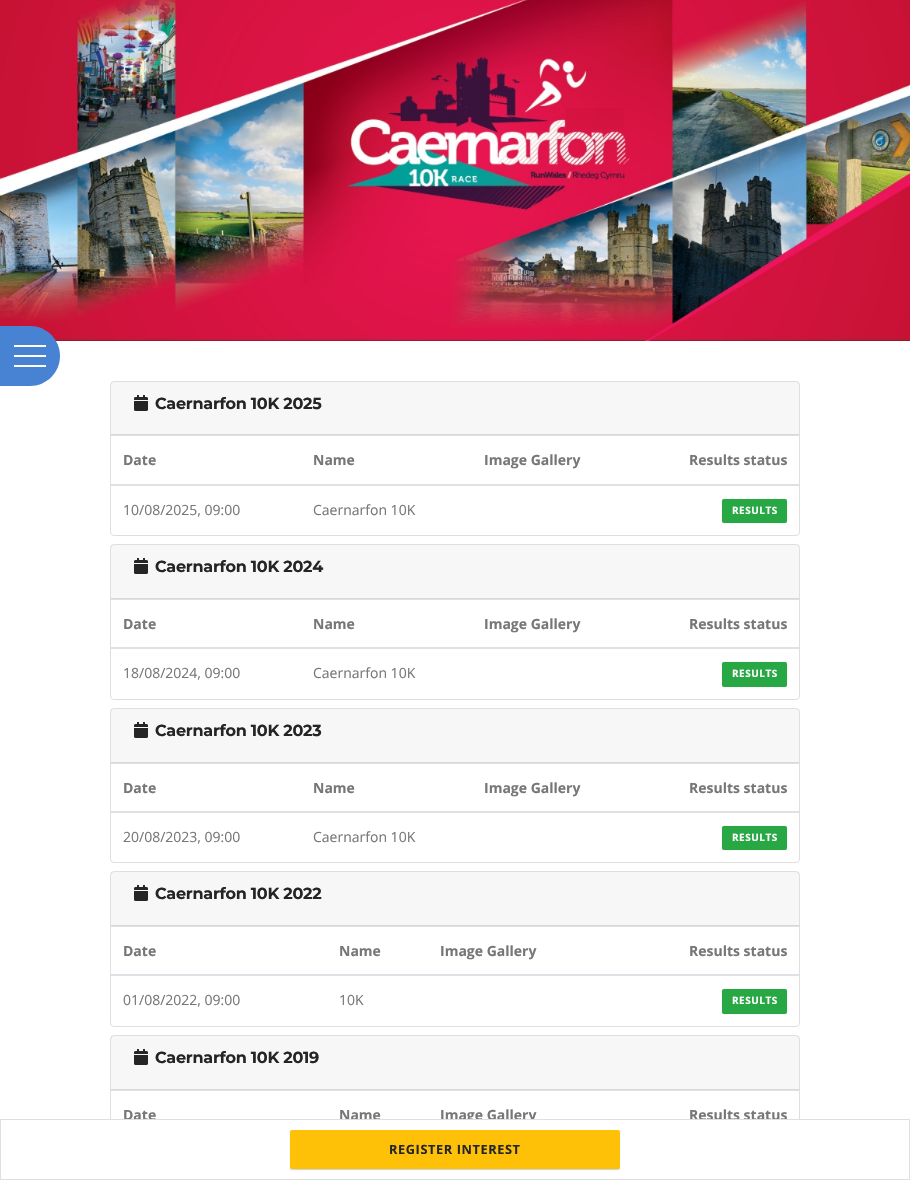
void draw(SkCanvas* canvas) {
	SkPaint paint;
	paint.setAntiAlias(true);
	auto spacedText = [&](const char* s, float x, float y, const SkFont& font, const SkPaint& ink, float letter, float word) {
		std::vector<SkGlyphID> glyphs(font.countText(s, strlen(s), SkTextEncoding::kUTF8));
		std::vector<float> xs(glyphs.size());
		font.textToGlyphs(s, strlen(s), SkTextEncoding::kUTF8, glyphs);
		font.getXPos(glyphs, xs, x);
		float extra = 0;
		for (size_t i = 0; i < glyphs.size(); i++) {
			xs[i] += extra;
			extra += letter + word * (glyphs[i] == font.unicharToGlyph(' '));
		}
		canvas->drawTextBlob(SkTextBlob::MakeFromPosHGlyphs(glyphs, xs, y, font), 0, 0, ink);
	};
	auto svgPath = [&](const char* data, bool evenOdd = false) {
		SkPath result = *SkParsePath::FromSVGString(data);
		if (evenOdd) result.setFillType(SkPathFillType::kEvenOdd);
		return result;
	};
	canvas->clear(0xffffffff);
	canvas->drawImageRect(SkImages::DeferredFromEncodedData(SkData::MakeFromFileName("img1.png")), SkRect::MakeXYWH(0, 0, 910, 341), SkSamplingOptions());
	paint.setColor(0xff4782d3);
	canvas->drawPath(svgPath("M0 326H30C46.5 326 60 339.5 60 356C60 372.5 46.5 386 30 386H0Z"), paint);
	paint.setColor(0xfffefefe);
	canvas->drawRect(SkRect::MakeXYWH(14, 355, 32, 2), paint);
	canvas->drawRect(SkRect::MakeXYWH(14, 345, 32, 2), paint);
	canvas->drawRect(SkRect::MakeXYWH(14, 365, 32, 2), paint);
	paint.setStroke(true);
	paint.setStrokeWidth(1);
	paint.setColor(0xffdfdfdf);
	canvas->drawRoundRect(SkRect::MakeXYWH(110.5, 381.5, 689, 154), 3.5, 3.5, paint);
	paint.setStroke(false);
	paint.setColor(0x08000000);
	canvas->drawRect(SkRect::MakeXYWH(111, 382, 688, 52), paint);
	paint.setColor(0xffd8d8d8);
	canvas->drawRect(SkRect::MakeXYWH(111, 434, 688, 1), paint);
	canvas->drawImageRect(SkImages::DeferredFromEncodedData(SkData::MakeFromFileName("img2.png")), SkRect::MakeXYWH(134, 395, 14, 16), SkSamplingOptions());
	SkFont f1(fontMgr->matchFamilyStyle("Montserrat", SkFontStyle::Bold()), 16);
	f1.setSubpixel(true);
	paint.setColor(0xff252525);
	spacedText("Caernarfon 10K 2025", 155, 409, f1, paint, -0.25, 0);
	SkFont f2(fontMgr->matchFamilyStyle("Open Sans", SkFontStyle::Bold()), 14);
	f2.setSubpixel(true);
	paint.setColor(0xff777777);
	canvas->drawString("Date", 123, 465, f2, paint);
	canvas->drawString("Name", 313, 465, f2, paint);
	canvas->drawString("Image Gallery", 484, 465, f2, paint);
	paint.setColor(0xffdee2e6);
	canvas->drawRect(SkRect::MakeXYWH(111, 435, 688, 1), paint);
	canvas->drawRect(SkRect::MakeXYWH(111, 484, 688, 2), paint);
	paint.setColor(0xff777777);
	canvas->drawString("Results status", 689, 465, f2, paint);
	SkFont f3(fontMgr->matchFamilyStyle("Open Sans", SkFontStyle::Normal()), 14);
	f3.setSubpixel(true);
	canvas->drawString("10/08/2025, 09:00", 123, 515, f3, paint);
	canvas->drawString("Caernarfon 10K", 313, 515, f3, paint);
	paint.setColor(0x2e000000);
	paint.setMaskFilter(SkMaskFilter::MakeBlur(kNormal_SkBlurStyle, 0.5));
	canvas->drawRoundRect(SkRect::MakeXYWH(722, 499, 65, 24), 2, 2, paint);
	paint.setMaskFilter(nullptr);
	paint.setColor(0xff28a745);
	canvas->drawRoundRect(SkRect::MakeXYWH(722, 499, 65, 24), 2, 2, paint);
	SkFont f4(fontMgr->matchFamilyStyle("Open Sans", SkFontStyle::Bold()), 10);
	f4.setSubpixel(true);
	paint.setColor(0xffffffff);
	spacedText("RESULTS", 732, 514, f4, paint, 0.5, 0);
	paint.setStroke(true);
	paint.setColor(0xffdfdfdf);
	canvas->drawRoundRect(SkRect::MakeXYWH(110.5, 544.5, 689, 155), 3.5, 3.5, paint);
	paint.setStroke(false);
	paint.setColor(0x08000000);
	canvas->drawRect(SkRect::MakeXYWH(111, 545, 688, 53), paint);
	paint.setColor(0xffd8d8d8);
	canvas->drawRect(SkRect::MakeXYWH(111, 598, 688, 1), paint);
	canvas->drawImageRect(SkImages::DeferredFromEncodedData(SkData::MakeFromFileName("img2.png")), SkRect::MakeXYWH(134, 558, 14, 16), SkSamplingOptions());
	paint.setColor(0xff252525);
	spacedText("Caernarfon 10K 2024", 155, 572, f1, paint, -0.25, 0);
	paint.setColor(0xff777777);
	canvas->drawString("Date", 123, 629, f2, paint);
	canvas->drawString("Name", 313, 629, f2, paint);
	canvas->drawString("Image Gallery", 484, 629, f2, paint);
	paint.setColor(0xffdee2e6);
	canvas->drawRect(SkRect::MakeXYWH(111, 599, 688, 1), paint);
	canvas->drawRect(SkRect::MakeXYWH(111, 647, 688, 2), paint);
	paint.setColor(0xff777777);
	canvas->drawString("Results status", 689, 629, f2, paint);
	canvas->drawString("18/08/2024, 09:00", 123, 678, f3, paint);
	canvas->drawString("Caernarfon 10K", 313, 678, f3, paint);
	paint.setColor(0x2e000000);
	paint.setMaskFilter(SkMaskFilter::MakeBlur(kNormal_SkBlurStyle, 0.5));
	canvas->drawRoundRect(SkRect::MakeXYWH(722, 662, 65, 25), 2, 2, paint);
	paint.setMaskFilter(nullptr);
	paint.setColor(0xff28a745);
	canvas->drawRoundRect(SkRect::MakeXYWH(722, 662, 65, 25), 2, 2, paint);
	paint.setColor(0xffffffff);
	spacedText("RESULTS", 732, 677, f4, paint, 0.5, 0);
	paint.setStroke(true);
	paint.setColor(0xffdfdfdf);
	canvas->drawRoundRect(SkRect::MakeXYWH(110.5, 708.5, 689, 154), 3.5, 3.5, paint);
	paint.setStroke(false);
	paint.setColor(0x08000000);
	canvas->drawRect(SkRect::MakeXYWH(111, 709, 688, 53), paint);
	paint.setColor(0xffd8d8d8);
	canvas->drawRect(SkRect::MakeXYWH(111, 762, 688, 1), paint);
	canvas->drawImageRect(SkImages::DeferredFromEncodedData(SkData::MakeFromFileName("img2.png")), SkRect::MakeXYWH(134, 722, 14, 16), SkSamplingOptions());
	paint.setColor(0xff252525);
	spacedText("Caernarfon 10K 2023", 155, 736, f1, paint, -0.25, 0);
	paint.setColor(0xff777777);
	canvas->drawString("Date", 123, 793, f2, paint);
	canvas->drawString("Name", 313, 793, f2, paint);
	canvas->drawString("Image Gallery", 484, 793, f2, paint);
	paint.setColor(0xffdee2e6);
	canvas->drawRect(SkRect::MakeXYWH(111, 763, 688, 1), paint);
	canvas->drawRect(SkRect::MakeXYWH(111, 811, 688, 2), paint);
	paint.setColor(0xff777777);
	canvas->drawString("Results status", 689, 793, f2, paint);
	canvas->drawString("20/08/2023, 09:00", 123, 842, f3, paint);
	canvas->drawString("Caernarfon 10K", 313, 842, f3, paint);
	paint.setColor(0x2e000000);
	paint.setMaskFilter(SkMaskFilter::MakeBlur(kNormal_SkBlurStyle, 0.5));
	canvas->drawRoundRect(SkRect::MakeXYWH(722, 826, 65, 24), 2, 2, paint);
	paint.setMaskFilter(nullptr);
	paint.setColor(0xff28a745);
	canvas->drawRoundRect(SkRect::MakeXYWH(722, 826, 65, 24), 2, 2, paint);
	paint.setColor(0xffffffff);
	spacedText("RESULTS", 732, 841, f4, paint, 0.5, 0);
	paint.setStroke(true);
	paint.setColor(0xffdfdfdf);
	canvas->drawRoundRect(SkRect::MakeXYWH(110.5, 871.5, 689, 155), 3.5, 3.5, paint);
	paint.setStroke(false);
	paint.setColor(0x08000000);
	canvas->drawRect(SkRect::MakeXYWH(111, 872, 688, 53), paint);
	paint.setColor(0xffd8d8d8);
	canvas->drawRect(SkRect::MakeXYWH(111, 925, 688, 1), paint);
	canvas->drawImageRect(SkImages::DeferredFromEncodedData(SkData::MakeFromFileName("img2.png")), SkRect::MakeXYWH(134, 885, 14, 16), SkSamplingOptions());
	paint.setColor(0xff252525);
	spacedText("Caernarfon 10K 2022", 155, 899, f1, paint, -0.25, 0);
	paint.setColor(0xff777777);
	canvas->drawString("Date", 123, 956, f2, paint);
	canvas->drawString("Name", 339, 956, f2, paint);
	canvas->drawString("Image Gallery", 440, 956, f2, paint);
	paint.setColor(0xffdee2e6);
	canvas->drawRect(SkRect::MakeXYWH(111, 926, 688, 1), paint);
	canvas->drawRect(SkRect::MakeXYWH(111, 974, 688, 2), paint);
	paint.setColor(0xff777777);
	canvas->drawString("Results status", 689, 956, f2, paint);
	canvas->drawString("01/08/2022, 09:00", 123, 1005, f3, paint);
	canvas->drawString("10K", 339, 1005, f3, paint);
	paint.setColor(0x2e000000);
	paint.setMaskFilter(SkMaskFilter::MakeBlur(kNormal_SkBlurStyle, 0.5));
	canvas->drawRoundRect(SkRect::MakeXYWH(722, 989, 65, 25), 2, 2, paint);
	paint.setMaskFilter(nullptr);
	paint.setColor(0xff28a745);
	canvas->drawRoundRect(SkRect::MakeXYWH(722, 989, 65, 25), 2, 2, paint);
	paint.setColor(0xffffffff);
	spacedText("RESULTS", 732, 1004, f4, paint, 0.5, 0);
	paint.setStroke(true);
	paint.setColor(0xffdfdfdf);
	canvas->drawRoundRect(SkRect::MakeXYWH(110.5, 1035.5, 689, 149), 3.5, 3.5, paint);
	paint.setStroke(false);
	paint.setColor(0x08000000);
	canvas->drawRect(SkRect::MakeXYWH(111, 1036, 688, 53), paint);
	paint.setColor(0xffd8d8d8);
	canvas->drawRect(SkRect::MakeXYWH(111, 1089, 688, 1), paint);
	canvas->drawImageRect(SkImages::DeferredFromEncodedData(SkData::MakeFromFileName("img2.png")), SkRect::MakeXYWH(134, 1049, 14, 16), SkSamplingOptions());
	paint.setColor(0xff252525);
	spacedText("Caernarfon 10K 2019", 155, 1063, f1, paint, -0.25, 0);
	paint.setColor(0xff777777);
	canvas->drawString("Date", 123, 1120, f2, paint);
	canvas->drawString("Name", 339, 1120, f2, paint);
	canvas->drawString("Image Gallery", 440, 1120, f2, paint);
	paint.setColor(0xffdee2e6);
	canvas->drawRect(SkRect::MakeXYWH(111, 1090, 688, 1), paint);
	paint.setColor(0xff777777);
	canvas->drawString("Results status", 689, 1120, f2, paint);
	paint.setColor(0xffffffff);
	canvas->drawRect(SkRect::MakeXYWH(110, 1120, 690, 59), paint);
	paint.setStroke(true);
	paint.setColor(0xffdfdfdf);
	canvas->drawRect(SkRect::MakeXYWH(0.5, 1119.5, 909, 60), paint);
	paint.setStroke(false);
	paint.setColor(0x2e000000);
	paint.setMaskFilter(SkMaskFilter::MakeBlur(kNormal_SkBlurStyle, 0.5));
	canvas->drawRoundRect(SkRect::MakeXYWH(290, 1131, 330, 39), 2, 2, paint);
	paint.setMaskFilter(nullptr);
	paint.setColor(0xffffc107);
	canvas->drawRoundRect(SkRect::MakeXYWH(290, 1130, 330, 39), 2, 2, paint);
	SkFont f5(fontMgr->matchFamilyStyle("Open Sans", SkFontStyle::Bold()), 12.75);
	f5.setSubpixel(true);
	paint.setColor(0xff252525);
	spacedText("REGISTER INTEREST", 389, 1154, f5, paint, 0.6, 0);
}
